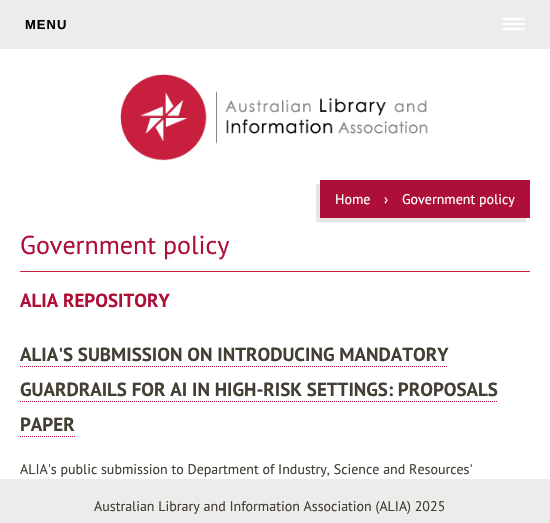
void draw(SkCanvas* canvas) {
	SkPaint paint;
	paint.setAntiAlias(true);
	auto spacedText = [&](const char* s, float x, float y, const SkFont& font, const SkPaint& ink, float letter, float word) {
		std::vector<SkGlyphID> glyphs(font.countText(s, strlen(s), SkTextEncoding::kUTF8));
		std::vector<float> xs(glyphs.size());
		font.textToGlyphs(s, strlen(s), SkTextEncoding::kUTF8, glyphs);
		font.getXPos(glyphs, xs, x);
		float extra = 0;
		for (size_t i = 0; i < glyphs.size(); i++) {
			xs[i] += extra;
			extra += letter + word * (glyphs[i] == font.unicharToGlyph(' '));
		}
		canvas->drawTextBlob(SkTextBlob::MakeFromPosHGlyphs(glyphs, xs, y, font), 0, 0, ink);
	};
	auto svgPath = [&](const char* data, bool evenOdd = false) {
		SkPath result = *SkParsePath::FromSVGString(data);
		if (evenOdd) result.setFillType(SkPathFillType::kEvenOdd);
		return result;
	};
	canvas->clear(0xffffffff);
	paint.setColor(0xffececeb);
	canvas->drawRect(SkRect::MakeXYWH(0, 0, 550, 49), paint);
	SkFont f1(fontMgr->matchFamilyStyle("Liberation Sans", SkFontStyle::Bold()), 13);
	f1.setSubpixel(true);
	paint.setColor(0xff000000);
	spacedText("MENU", 25, 29, f1, paint, 1, 0);
	paint.setColor(0xffffffff);
	canvas->drawRect(SkRect::MakeXYWH(503, 18, 22, 2), paint);
	canvas->drawRect(SkRect::MakeXYWH(503, 23, 22, 2), paint);
	canvas->drawRect(SkRect::MakeXYWH(503, 28, 22, 2), paint);
	canvas->drawImageRect(SkImages::DeferredFromEncodedData(SkData::MakeFromFileName("img1.png")), SkRect::MakeXYWH(120, 74, 308, 87), SkSamplingOptions());
	paint.setColor(0xffe6e6e6);
	canvas->drawPath(svgPath("M316 184V222H526V218H320V184Z"), paint);
	paint.setColor(0xffae0f38);
	canvas->drawRect(SkRect::MakeXYWH(320, 180, 210, 38), paint);
	SkFont f2(fontMgr->matchFamilyStyle("PT Sans", SkFontStyle::Normal()), 14);
	f2.setSubpixel(true);
	paint.setColor(0xffffffff);
	canvas->drawString("Home", 335, 204, f2, paint);
	canvas->drawString("›", 384, 204, f2, paint);
	canvas->drawString("Government policy", 402, 204, f2, paint);
	paint.setColor(0xffc32441);
	canvas->drawRect(SkRect::MakeXYWH(20, 271, 510, 1), paint);
	SkFont f3(fontMgr->matchFamilyStyle("PT Sans", SkFontStyle::Normal()), 26);
	f3.setSubpixel(true);
	paint.setColor(0xffae0f38);
	canvas->drawString("Government policy", 20, 254, f3, paint);
	SkFont f4(fontMgr->matchFamilyStyle("PT Sans", SkFontStyle::Bold()), 19);
	f4.setSubpixel(true);
	canvas->drawString("ALIA REPOSITORY", 20, 307, f4, paint);
	paint.setColor(0xff443f35);
	canvas->drawString("ALIA'S SUBMISSION ON INTRODUCING MANDATORY", 20, 361, f4, paint);
	paint.setStroke(true);
	paint.setStrokeWidth(1);
	paint.setColor(0xffae0f38);
	paint.setPathEffect(SkDashPathEffect::Make({{1, 1}}, 0));
	canvas->drawPath(svgPath("M20 366.5H448"), paint);
	paint.setPathEffect(nullptr);
	paint.setStroke(false);
	paint.setColor(0xff443f35);
	canvas->drawString("GUARDRAILS FOR AI IN HIGH-RISK SETTINGS: PROPOSALS", 20, 396, f4, paint);
	paint.setStroke(true);
	paint.setColor(0xffae0f38);
	paint.setPathEffect(SkDashPathEffect::Make({{1, 1}}, 0));
	canvas->drawPath(svgPath("M20 401.5H498"), paint);
	paint.setPathEffect(nullptr);
	paint.setStroke(false);
	paint.setColor(0xff443f35);
	canvas->drawString("PAPER", 20, 431, f4, paint);
	paint.setStroke(true);
	paint.setColor(0xffae0f38);
	paint.setPathEffect(SkDashPathEffect::Make({{1, 1}}, 0));
	canvas->drawPath(svgPath("M20 436.5H75"), paint);
	paint.setPathEffect(nullptr);
	paint.setStroke(false);
	paint.setColor(0xff443f35);
	canvas->drawString("ALIA's public submission to Department of Industry, Science and Resources'", 20, 474, f2, paint);
	paint.setColor(0xffececeb);
	canvas->drawRect(SkRect::MakeXYWH(0, 479, 550, 44), paint);
	paint.setColor(0xff443f35);
	canvas->drawString("Australian Library and Information Association (ALIA) 2025", 94, 511, f2, paint);
}
